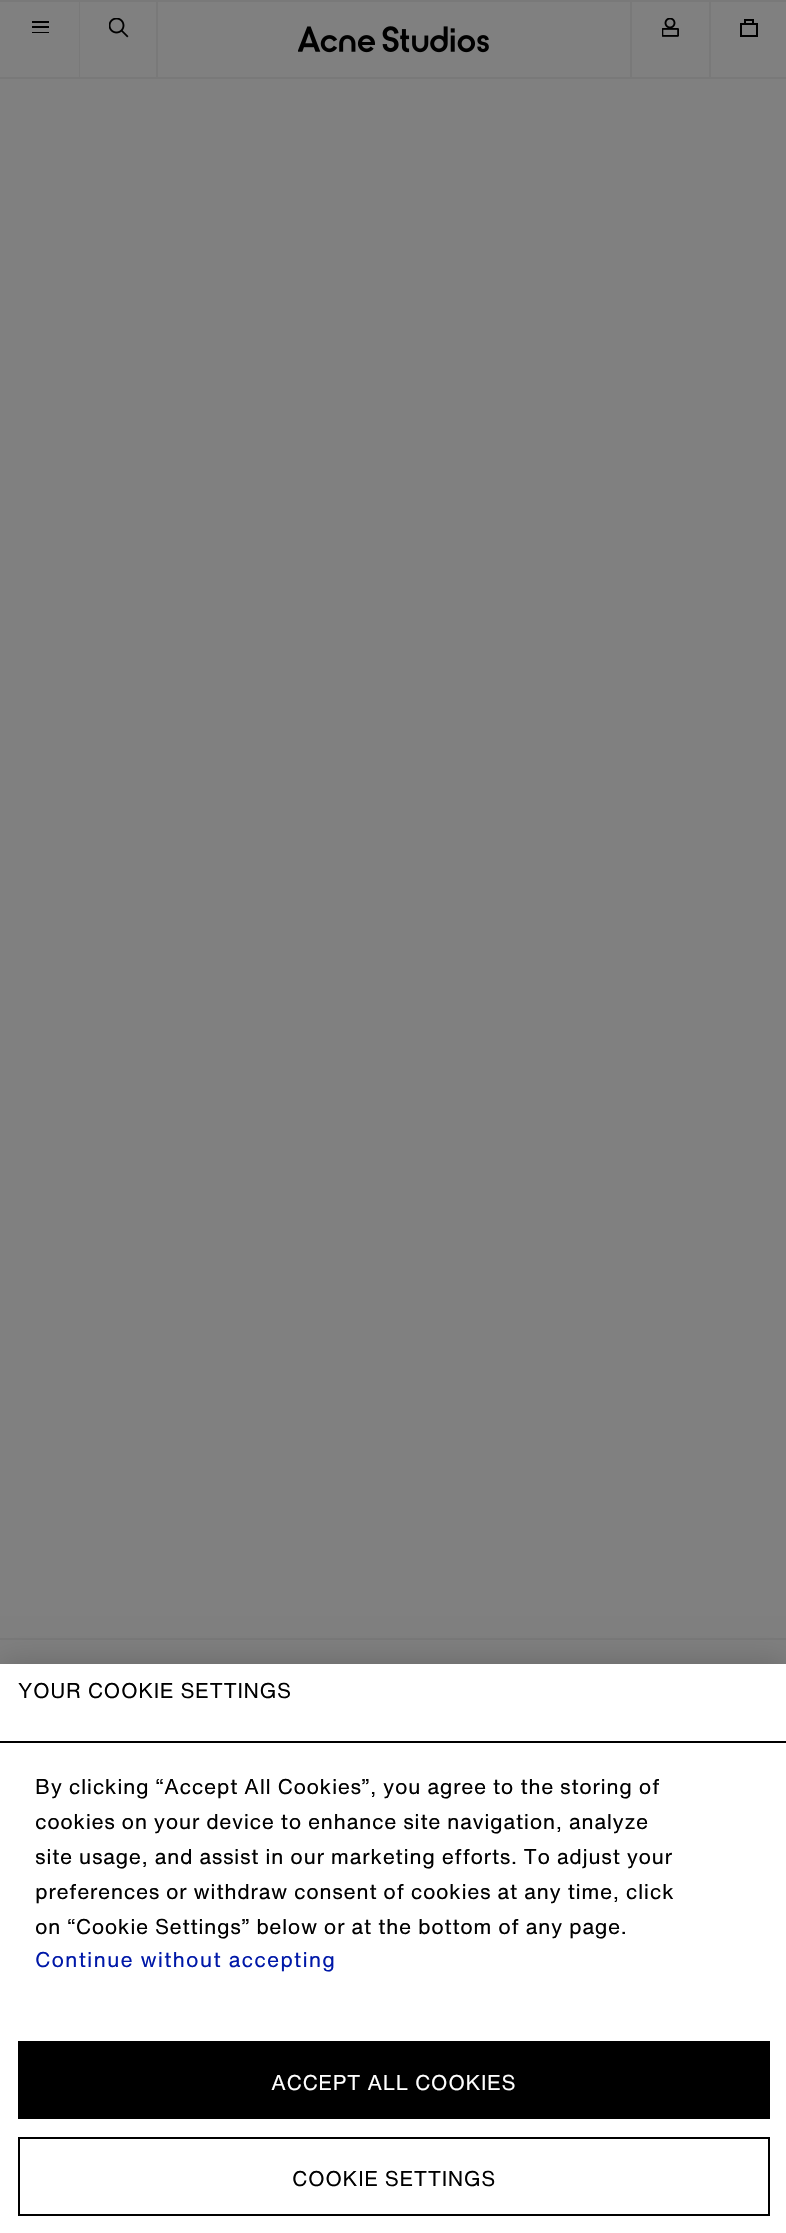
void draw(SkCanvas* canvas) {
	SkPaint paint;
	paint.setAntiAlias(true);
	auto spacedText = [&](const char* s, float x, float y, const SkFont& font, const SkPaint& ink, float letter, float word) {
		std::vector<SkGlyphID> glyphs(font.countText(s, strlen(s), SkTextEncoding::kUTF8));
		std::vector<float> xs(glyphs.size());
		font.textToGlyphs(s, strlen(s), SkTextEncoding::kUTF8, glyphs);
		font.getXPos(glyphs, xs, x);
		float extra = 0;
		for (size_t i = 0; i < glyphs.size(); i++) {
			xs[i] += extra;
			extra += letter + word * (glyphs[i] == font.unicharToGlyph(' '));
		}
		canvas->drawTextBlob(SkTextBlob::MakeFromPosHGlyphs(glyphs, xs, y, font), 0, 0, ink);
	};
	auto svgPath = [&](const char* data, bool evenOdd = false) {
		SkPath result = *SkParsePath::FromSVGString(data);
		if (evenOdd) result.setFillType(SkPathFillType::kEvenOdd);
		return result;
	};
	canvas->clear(0xff808080);
	paint.setColor(0xff797979);
	canvas->drawRect(SkRect::MakeXYWH(0, 77, 786, 2), paint);
	canvas->drawRect(SkRect::MakeXYWH(0, 0, 786, 2), paint);
	paint.setColor(0xff000000);
	canvas->drawRect(SkRect::MakeXYWH(32, 21, 17, 2), paint);
	canvas->drawRect(SkRect::MakeXYWH(32, 26, 17, 2), paint);
	canvas->drawRect(SkRect::MakeXYWH(32, 32, 17, 1), paint);
	paint.setColor(0xff797979);
	canvas->drawPath(svgPath("M158 0V79L156 77V2Z"), paint);
	canvas->drawPath(svgPath("M79 79V0L80 2V77Z"), paint);
	canvas->drawImageRect(SkImages::DeferredFromEncodedData(SkData::MakeFromFileName("img1.png")), SkRect::MakeXYWH(109, 18, 20, 20), SkSamplingOptions());
	canvas->drawImageRect(SkImages::DeferredFromEncodedData(SkData::MakeFromFileName("img2.png")), SkRect::MakeXYWH(298, 26, 191, 27), SkSamplingOptions());
	canvas->drawRect(SkRect::MakeXYWH(630, 0, 2, 79), paint);
	canvas->drawImageRect(SkImages::DeferredFromEncodedData(SkData::MakeFromFileName("img3.png")), SkRect::MakeXYWH(662, 18, 17, 19), SkSamplingOptions());
	canvas->drawRect(SkRect::MakeXYWH(709, 0, 2, 79), paint);
	paint.setStroke(true);
	paint.setStrokeWidth(2);
	paint.setColor(0xff000000);
	canvas->drawRect(SkRect::MakeXYWH(741, 24, 16, 12), paint);
	canvas->drawRect(SkRect::MakeXYWH(745, 20, 8, 4), paint);
	paint.setStroke(false);
	paint.setColor(0xff797979);
	canvas->drawRect(SkRect::MakeXYWH(0, 1638, 786, 2), paint);
	paint.setColor(0x33000000);
	paint.setMaskFilter(SkMaskFilter::MakeBlur(kNormal_SkBlurStyle, 16));
	canvas->drawRect(SkRect::MakeXYWH(0, 1664, 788, 569), paint);
	paint.setMaskFilter(nullptr);
	paint.setColor(0xffffffff);
	canvas->drawRect(SkRect::MakeXYWH(0, 1664, 786, 569), paint);
	paint.setColor(0xff000000);
	canvas->drawRect(SkRect::MakeXYWH(0, 1741, 786, 2), paint);
	SkFont f1(fontMgr->matchFamilyStyle("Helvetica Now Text", SkFontStyle::Normal()), 21);
	f1.setSubpixel(true);
	spacedText("YOUR COOKIE SETTINGS", 18, 1698, f1, paint, 0.53, 0);
	spacedText("By clicking “Accept All Cookies”, you agree to the storing of", 35, 1794, f1, paint, 0.53, 0);
	spacedText("cookies on your device to enhance site navigation, analyze", 35, 1829, f1, paint, 0.53, 0);
	spacedText("site usage, and assist in our marketing efforts. To adjust your", 35, 1864, f1, paint, 0.53, 0);
	spacedText("preferences or withdraw consent of cookies at any time, click", 35, 1899, f1, paint, 0.53, 0);
	spacedText("on “Cookie Settings” below or at the bottom of any page.", 35, 1934, f1, paint, 0.53, 0);
	paint.setColor(0xff0018a8);
	spacedText("Continue without accepting", 35, 1967, f1, paint, 1.05, 0);
	paint.setColor(0xff000000);
	canvas->drawRect(SkRect::MakeXYWH(18, 2041, 752, 78), paint);
	paint.setColor(0xffffffff);
	spacedText("ACCEPT ALL COOKIES", 271, 2090, f1, paint, 0.53, 0);
	paint.setStroke(true);
	paint.setColor(0xff000000);
	canvas->drawRect(SkRect::MakeXYWH(19, 2138, 750, 77), paint);
	paint.setStroke(false);
	spacedText("COOKIE SETTINGS", 292, 2186, f1, paint, 0.53, 0);
}
